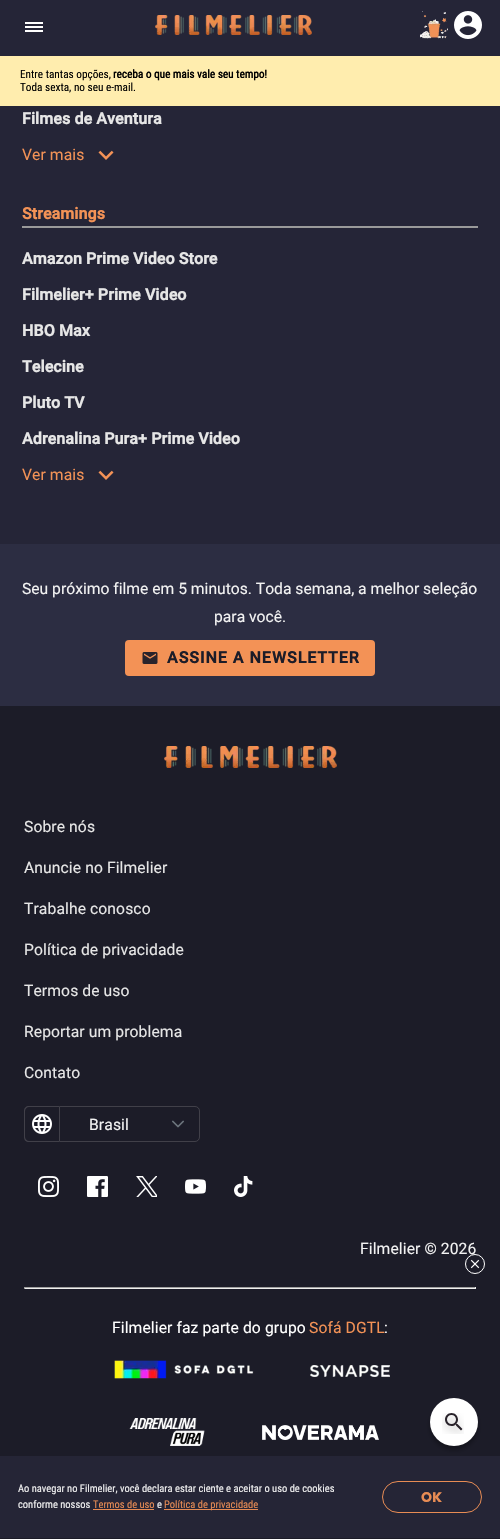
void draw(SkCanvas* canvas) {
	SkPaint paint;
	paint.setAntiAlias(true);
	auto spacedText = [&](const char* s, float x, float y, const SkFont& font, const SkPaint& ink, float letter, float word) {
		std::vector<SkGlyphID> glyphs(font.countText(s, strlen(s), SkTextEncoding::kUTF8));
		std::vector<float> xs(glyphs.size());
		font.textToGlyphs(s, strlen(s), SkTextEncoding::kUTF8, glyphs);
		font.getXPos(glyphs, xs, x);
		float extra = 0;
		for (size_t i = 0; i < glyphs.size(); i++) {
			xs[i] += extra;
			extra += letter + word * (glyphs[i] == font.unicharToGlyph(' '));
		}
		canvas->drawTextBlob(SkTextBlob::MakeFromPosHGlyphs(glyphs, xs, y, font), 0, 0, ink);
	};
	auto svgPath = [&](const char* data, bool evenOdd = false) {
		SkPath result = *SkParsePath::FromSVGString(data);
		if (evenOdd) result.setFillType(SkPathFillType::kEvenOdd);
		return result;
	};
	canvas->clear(0xff1c1c28);
	paint.setColor(0xff252537);
	canvas->drawRect(SkRect::MakeXYWH(0, 0, 500, 56), paint);
	paint.setColor(0xffffffff);
	canvas->drawRect(SkRect::MakeXYWH(25, 26, 18, 2), paint);
	canvas->drawRect(SkRect::MakeXYWH(25, 22, 18, 2), paint);
	canvas->drawRect(SkRect::MakeXYWH(25, 30, 18, 2), paint);
	canvas->drawImageRect(SkImages::DeferredFromEncodedData(SkData::MakeFromFileName("img1.png")), SkRect::MakeXYWH(155, 15, 157, 20), SkSamplingOptions());
	canvas->drawImageRect(SkImages::DeferredFromEncodedData(SkData::MakeFromFileName("img2.png")), SkRect::MakeXYWH(420, 11, 28, 28), SkSamplingOptions());
	canvas->drawImageRect(SkImages::DeferredFromEncodedData(SkData::MakeFromFileName("img3.png")), SkRect::MakeXYWH(454, 11, 28, 28), SkSamplingOptions());
	paint.setColor(0xffffedae);
	canvas->drawRect(SkRect::MakeXYWH(0, 56, 500, 50), paint);
	SkFont f1(fontMgr->matchFamilyStyle("Roboto Condensed", SkFontStyle::Normal()), 11.25);
	f1.setSubpixel(true);
	paint.setColor(0xff000000);
	canvas->drawString("Entre tantas opções,", 20, 78, f1, paint);
	SkFont f2(fontMgr->matchFamilyStyle("Roboto Condensed", SkFontStyle::Bold()), 11.25);
	f2.setSubpixel(true);
	canvas->drawString("receba o que mais vale seu tempo!", 113, 78, f2, paint);
	canvas->drawString("Toda sexta, no seu e-mail.", 20, 91, f1, paint);
	paint.setColor(0xff252537);
	canvas->drawRect(SkRect::MakeXYWH(0, 106, 500, 438), paint);
	SkFont f3(fontMgr->matchFamilyStyle("Roboto", SkFontStyle::Bold()), 16);
	f3.setSubpixel(true);
	paint.setColor(0xffe6e6e6);
	spacedText("Filmes de Aventura", 22, 124, f3, paint, 0.1, 0);
	SkFont f4(fontMgr->matchFamilyStyle("Roboto", SkFontStyle::Normal()), 16);
	f4.setSubpixel(true);
	paint.setColor(0xfff39256);
	spacedText("Ver mais", 22, 160, f4, paint, 0.1, 0);
	canvas->drawImageRect(SkImages::DeferredFromEncodedData(SkData::MakeFromFileName("img4.png")), SkRect::MakeXYWH(98, 150, 16, 10), SkSamplingOptions());
	spacedText("Streamings", 22, 219, f3, paint, 0.1, 0);
	paint.setColor(0xff9a9a9a);
	canvas->drawRect(SkRect::MakeXYWH(22, 226, 456, 2), paint);
	paint.setColor(0xffe6e6e6);
	spacedText("Amazon Prime Video Store", 22, 264, f3, paint, 0.1, 0);
	spacedText("Filmelier+ Prime Video", 22, 300, f3, paint, 0.1, 0);
	spacedText("HBO Max", 22, 336, f3, paint, 0.1, 0);
	spacedText("Telecine", 22, 372, f3, paint, 0.1, 0);
	spacedText("Pluto TV", 22, 408, f3, paint, 0.1, 0);
	spacedText("Adrenalina Pura+ Prime Video", 22, 444, f3, paint, 0.1, 0);
	paint.setColor(0xfff39256);
	spacedText("Ver mais", 22, 480, f4, paint, 0.1, 0);
	canvas->drawImageRect(SkImages::DeferredFromEncodedData(SkData::MakeFromFileName("img4.png")), SkRect::MakeXYWH(98, 470, 16, 10), SkSamplingOptions());
	paint.setColor(0xff2c2d42);
	canvas->drawRect(SkRect::MakeXYWH(0, 544, 500, 162), paint);
	paint.setColor(0xfff2f2f2);
	canvas->drawString("Seu próximo filme em 5 minutos. Toda semana, a melhor seleção", 22, 594, f4, paint);
	canvas->drawString("para você.", 214, 622, f4, paint);
	paint.setColor(0xfff39256);
	canvas->drawRoundRect(SkRect::MakeXYWH(125, 640, 250, 36), 4, 4, paint);
	canvas->drawImageRect(SkImages::DeferredFromEncodedData(SkData::MakeFromFileName("img5.png")), SkRect::MakeXYWH(142, 652, 16, 12), SkSamplingOptions());
	paint.setColor(0xff1c1c28);
	spacedText("ASSINE A NEWSLETTER", 167, 663, f3, paint, 1, 0);
	canvas->drawImageRect(SkImages::DeferredFromEncodedData(SkData::MakeFromFileName("img6.png")), SkRect::MakeXYWH(164, 746, 173, 22), SkSamplingOptions());
	paint.setColor(0xffe6e6e6);
	spacedText("Sobre nós", 24, 832, f4, paint, 0.1, 0);
	spacedText("Anuncie no Filmelier", 24, 873, f4, paint, 0.1, 0);
	spacedText("Trabalhe conosco", 24, 914, f4, paint, 0.1, 0);
	spacedText("Política de privacidade", 24, 955, f4, paint, 0.1, 0);
	spacedText("Termos de uso", 24, 996, f4, paint, 0.1, 0);
	spacedText("Reportar um problema", 24, 1037, f4, paint, 0.1, 0);
	spacedText("Contato", 24, 1078, f4, paint, 0.1, 0);
	paint.setColor(0xff414049);
	canvas->drawPath(svgPath("M29 1106H59V1142H29C26 1142 24 1140 24 1137V1111C24 1108 26 1106 29 1106ZM29 1107H59V1141H29C27 1141 25 1139 25 1137V1111C25 1109 27 1107 29 1107Z", true), paint);
	canvas->drawImageRect(SkImages::DeferredFromEncodedData(SkData::MakeFromFileName("img7.png")), SkRect::MakeXYWH(32, 1114, 20, 20), SkSamplingOptions());
	paint.setStroke(true);
	paint.setStrokeWidth(1);
	canvas->drawPath(svgPath("M59.5 1106.5H195C197.5 1106.5 199.5 1108.5 199.5 1111V1137C199.5 1139.5 197.5 1141.5 195 1141.5H59.5Z"), paint);
	paint.setStroke(false);
	paint.setColor(0xfff2f2f2);
	spacedText("Brasil", 89, 1130, f4, paint, 0.1, 0);
	canvas->drawImageRect(SkImages::DeferredFromEncodedData(SkData::MakeFromFileName("img8.png")), SkRect::MakeXYWH(172, 1120, 12, 8), SkSamplingOptions());
	canvas->drawImageRect(SkImages::DeferredFromEncodedData(SkData::MakeFromFileName("img9.png")), SkRect::MakeXYWH(38, 1176, 21, 21), SkSamplingOptions());
	canvas->drawImageRect(SkImages::DeferredFromEncodedData(SkData::MakeFromFileName("img10.png")), SkRect::MakeXYWH(87, 1176, 21, 21), SkSamplingOptions());
	canvas->drawImageRect(SkImages::DeferredFromEncodedData(SkData::MakeFromFileName("img11.png")), SkRect::MakeXYWH(136, 1176, 21, 21), SkSamplingOptions());
	canvas->drawImageRect(SkImages::DeferredFromEncodedData(SkData::MakeFromFileName("img12.png")), SkRect::MakeXYWH(185, 1179, 21, 15), SkSamplingOptions());
	canvas->drawImageRect(SkImages::DeferredFromEncodedData(SkData::MakeFromFileName("img13.png")), SkRect::MakeXYWH(234, 1176, 19, 21), SkSamplingOptions());
	spacedText("Filmelier © 2026", 360, 1254, f4, paint, 0.1, 0);
	paint.setColor(0xff9f9f9f);
	canvas->drawRect(SkRect::MakeXYWH(24, 1287, 452, 1), paint);
	paint.setColor(0xffeeeeee);
	canvas->drawRect(SkRect::MakeXYWH(475, 1287, 1, 2), paint);
	canvas->drawRect(SkRect::MakeXYWH(24, 1288, 452, 1), paint);
	paint.setColor(0xff9f9f9f);
	canvas->drawRect(SkRect::MakeXYWH(24, 1287, 1, 2), paint);
	paint.setColor(0xffffffff);
	spacedText("Filmelier faz parte do grupo", 112, 1333, f4, paint, 0.1, 0);
	paint.setColor(0xfff39256);
	spacedText("Sofá DGTL", 309, 1333, f4, paint, 0.1, 0);
	paint.setColor(0xffffffff);
	spacedText(":", 384, 1333, f4, paint, 0.1, 0);
	canvas->drawImageRect(SkImages::DeferredFromEncodedData(SkData::MakeFromFileName("img14.png")), SkRect::MakeXYWH(114, 1360, 140, 19), SkSamplingOptions());
	canvas->drawImageRect(SkImages::DeferredFromEncodedData(SkData::MakeFromFileName("img15.png")), SkRect::MakeXYWH(310, 1365, 80, 12), SkSamplingOptions());
	canvas->drawImageRect(SkImages::DeferredFromEncodedData(SkData::MakeFromFileName("img16.png")), SkRect::MakeXYWH(129, 1418, 76, 28), SkSamplingOptions());
	canvas->drawImageRect(SkImages::DeferredFromEncodedData(SkData::MakeFromFileName("img17.png")), SkRect::MakeXYWH(262, 1425, 117, 15), SkSamplingOptions());
	paint.setColor(0x4d000000);
	paint.setMaskFilter(SkMaskFilter::MakeBlur(kNormal_SkBlurStyle, 2));
	canvas->drawRoundRect(SkRect::MakeXYWH(430, 1402, 48, 48), 24, 24, paint);
	paint.setMaskFilter(nullptr);
	paint.setColor(0xffffffff);
	canvas->drawCircle(454, 1422, 24, paint);
	canvas->drawImageRect(SkImages::DeferredFromEncodedData(SkData::MakeFromFileName("img18.png")), SkRect::MakeXYWH(442, 1413, 22, 21), SkSamplingOptions());
	paint.setStroke(true);
	canvas->drawCircle(475, 1264, 9.5, paint);
	canvas->drawImageRect(SkImages::DeferredFromEncodedData(SkData::MakeFromFileName("img19.png")), SkRect::MakeXYWH(470, 1259, 10, 10), SkSamplingOptions());
	paint.setStroke(false);
	paint.setColor(0xff252536);
	canvas->drawRect(SkRect::MakeXYWH(0, 1456, 500, 82), paint);
	SkFont f5(fontMgr->matchFamilyStyle("Roboto Condensed", SkFontStyle::Normal()), 10.5);
	f5.setSubpixel(true);
	paint.setColor(0xfff2f2f2);
	canvas->drawString("Ao navegar no Filmelier, você declara estar ciente e aceitar o uso de cookies", 18, 1492, f5, paint);
	canvas->drawString("conforme nossos", 18, 1508, f5, paint);
	paint.setColor(0xffe88c54);
	canvas->drawString("Termos de uso", 93, 1508, f5, paint);
	canvas->drawRect(SkRect::MakeXYWH(93, 1509, 61, 1), paint);
	paint.setColor(0xfff2f2f2);
	canvas->drawString("e", 157, 1508, f5, paint);
	paint.setColor(0xffe88c54);
	canvas->drawRect(SkRect::MakeXYWH(164, 1509, 94, 1), paint);
	canvas->drawString("Política de privacidade", 164, 1508, f5, paint);
	paint.setStroke(true);
	canvas->drawRoundRect(SkRect::MakeXYWH(382.5, 1481.5, 99, 31), 15.5, 15.5, paint);
	SkFont f6(fontMgr->matchFamilyStyle("Poppins", SkFontStyle::Bold()), 14);
	f6.setSubpixel(true);
	paint.setStroke(false);
	canvas->drawString("OK", 421, 1502, f6, paint);
}
